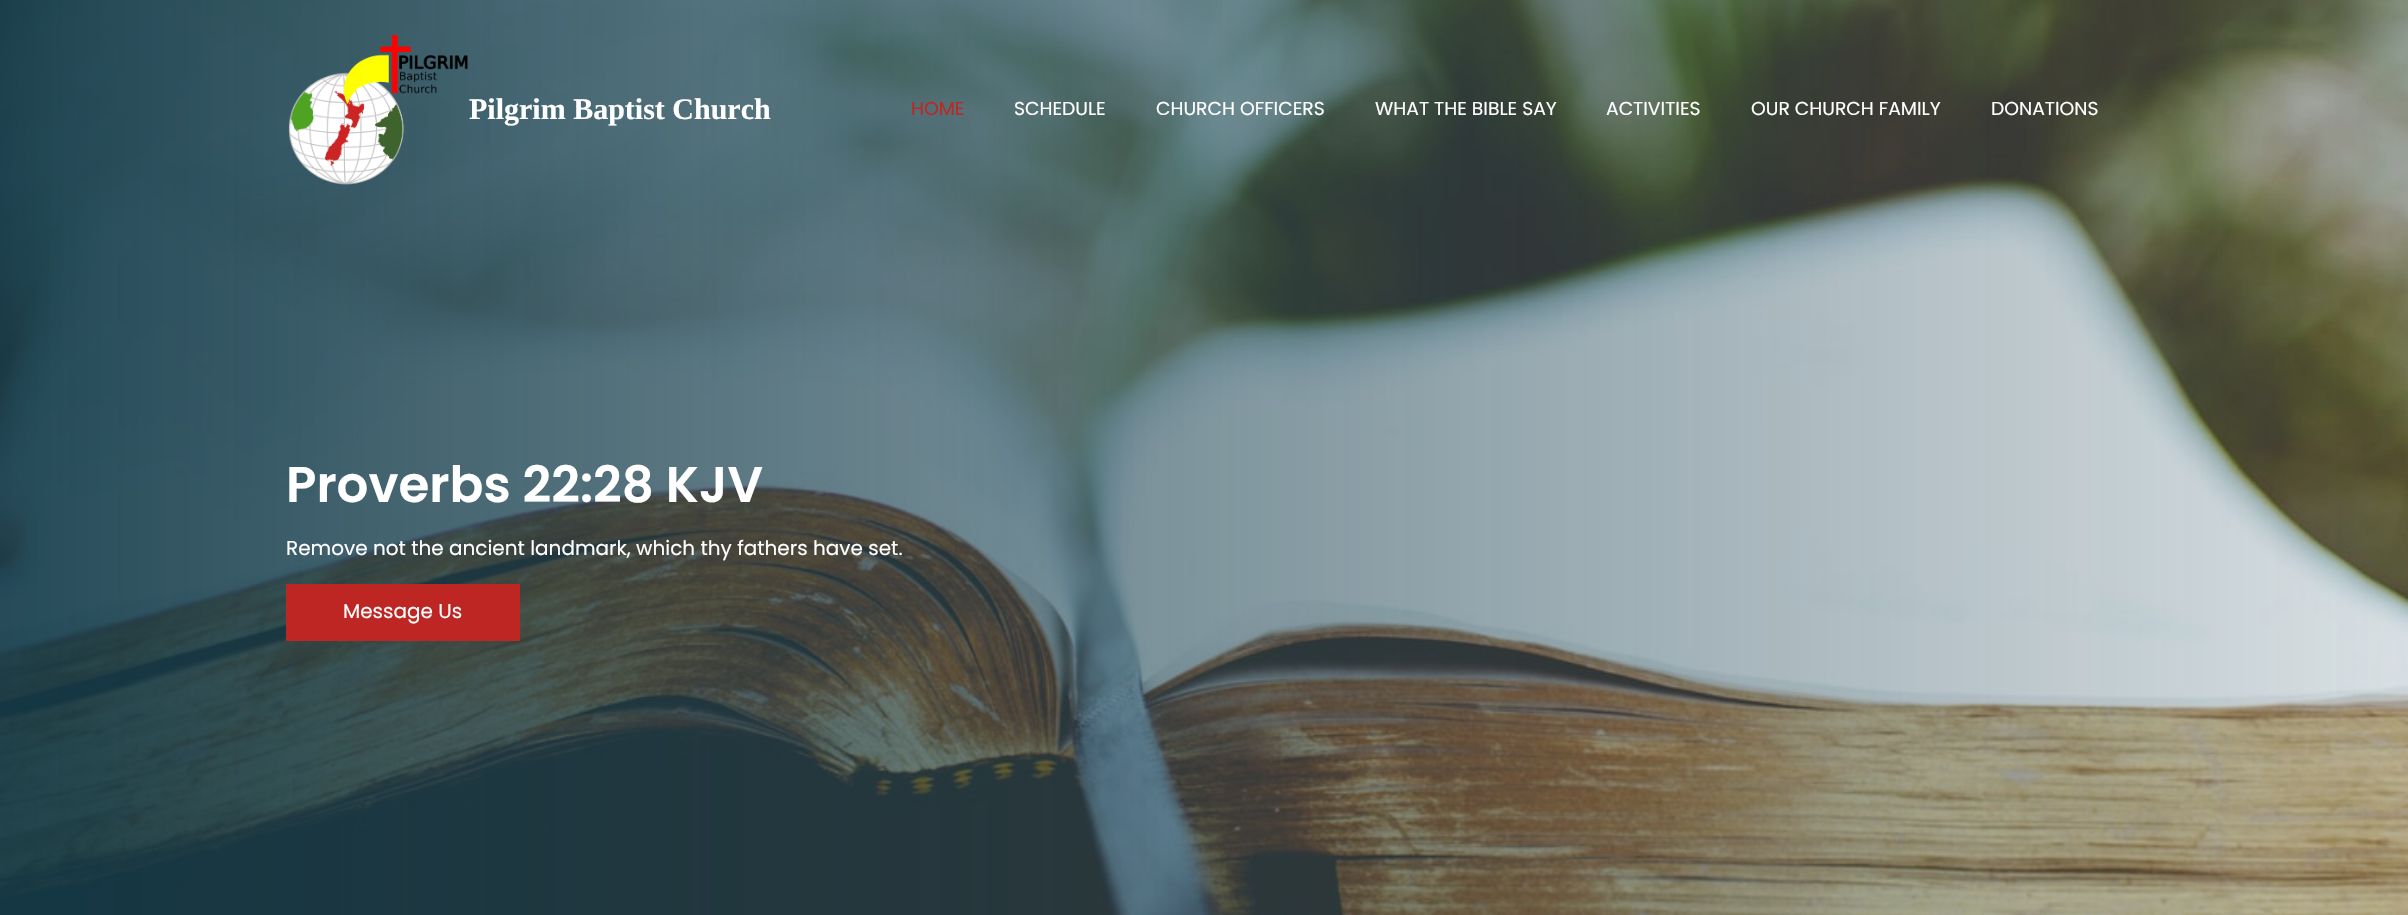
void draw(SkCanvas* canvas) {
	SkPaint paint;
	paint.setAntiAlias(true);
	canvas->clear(0xffffffff);
	canvas->drawImageRect(SkImages::DeferredFromEncodedData(SkData::MakeFromFileName("img1.png")), SkRect::MakeXYWH(0, 0, 2408, 915), SkSamplingOptions());
	canvas->drawImageRect(SkImages::DeferredFromEncodedData(SkData::MakeFromFileName("img2.png")), SkRect::MakeXYWH(288, 34, 180, 151), SkSamplingOptions());
	SkFont f1(fontMgr->matchFamilyStyle("Liberation Serif", SkFontStyle::Bold()), 30);
	f1.setSubpixel(true);
	paint.setColor(0xffffffff);
	canvas->drawString("Pilgrim Baptist Church", 469, 119, f1, paint);
	SkFont f2(fontMgr->matchFamilyStyle("Poppins", SkFontStyle::Normal()), 18.75);
	f2.setSubpixel(true);
	paint.setColor(0xffbe2623);
	canvas->drawString("HOME", 911, 115, f2, paint);
	paint.setColor(0xffffffff);
	canvas->drawString("SCHEDULE", 1014, 115, f2, paint);
	canvas->drawString("CHURCH OFFICERS", 1156, 115, f2, paint);
	canvas->drawString("WHAT THE BIBLE SAY", 1375, 115, f2, paint);
	canvas->drawString("ACTIVITIES", 1606, 115, f2, paint);
	canvas->drawString("OUR CHURCH FAMILY", 1751, 115, f2, paint);
	canvas->drawString("DONATIONS", 1991, 115, f2, paint);
	SkFont f3(fontMgr->matchFamilyStyle("Poppins", SkFontStyle(600, SkFontStyle::kNormal_Width, SkFontStyle::kUpright_Slant)), 50);
	f3.setSubpixel(true);
	canvas->drawString("Proverbs 22:28 KJV", 286, 502, f3, paint);
	SkFont f4(fontMgr->matchFamilyStyle("Poppins", SkFontStyle::Normal()), 20);
	f4.setSubpixel(true);
	canvas->drawString("Remove not the ancient landmark, which thy fathers have set.", 286, 555, f4, paint);
	paint.setColor(0xffbe2623);
	canvas->drawRect(SkRect::MakeXYWH(286, 584, 234, 57), paint);
	paint.setColor(0xffffffff);
	canvas->drawString("Message Us", 343, 618, f4, paint);
}
